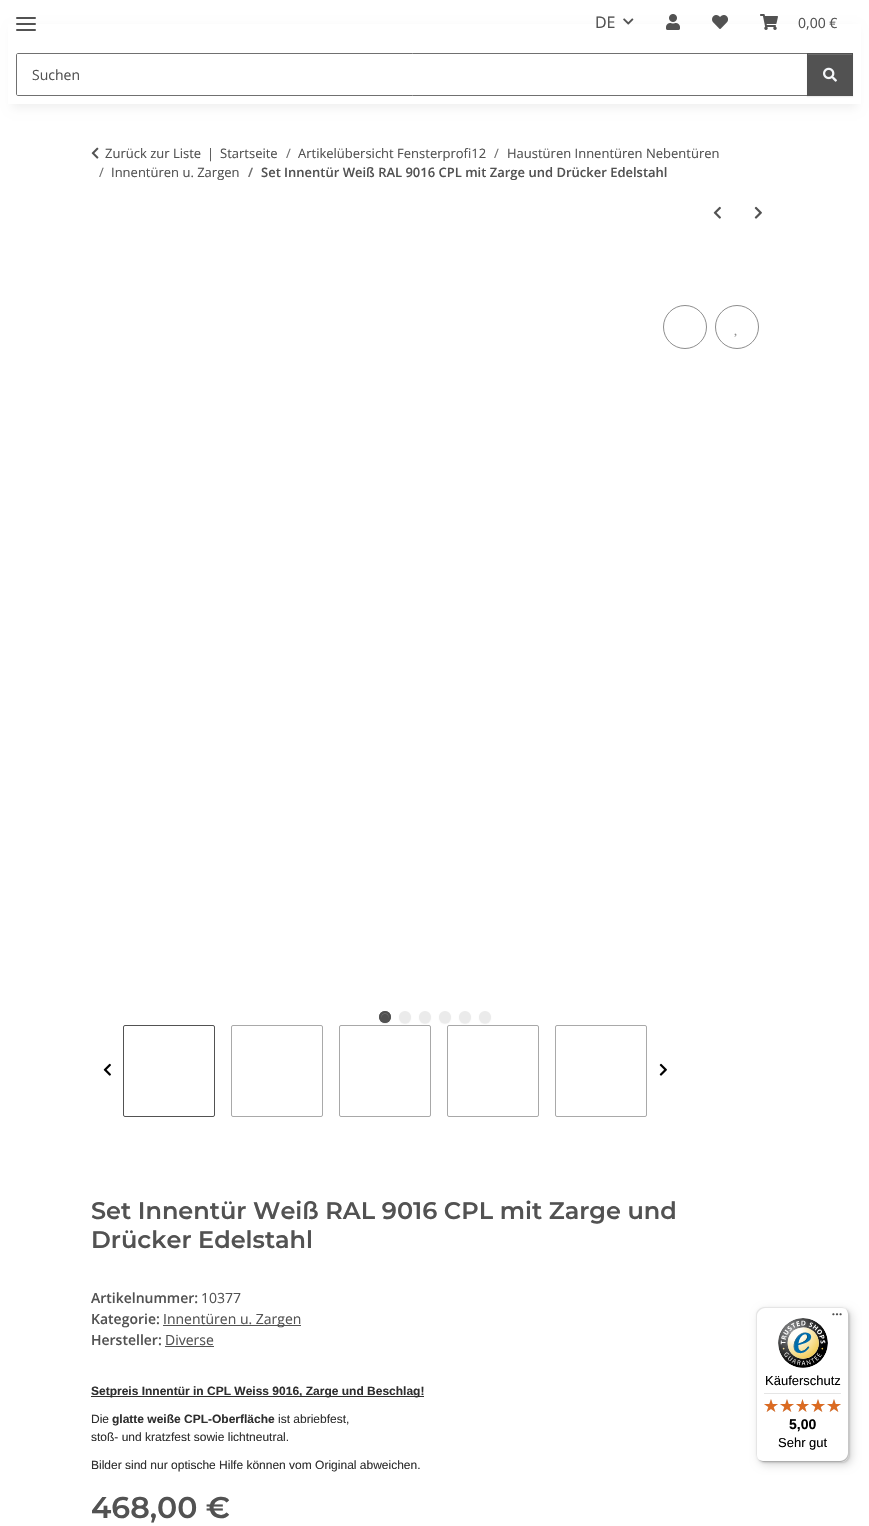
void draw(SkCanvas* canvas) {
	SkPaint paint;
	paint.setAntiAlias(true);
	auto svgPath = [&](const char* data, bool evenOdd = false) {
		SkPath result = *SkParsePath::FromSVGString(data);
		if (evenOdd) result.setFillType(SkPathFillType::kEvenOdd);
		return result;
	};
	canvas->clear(0xffffffff);
	paint.setColor(0x0f000000);
	paint.setMaskFilter(SkMaskFilter::MakeBlur(kNormal_SkBlurStyle, 4.5));
	canvas->drawRect(SkRect::MakeXYWH(12, 28, 845, 80), paint);
	paint.setMaskFilter(nullptr);
	paint.setColor(0xffffffff);
	canvas->drawRect(SkRect::MakeXYWH(8, 24, 853, 80), paint);
	paint.setColor(0xff525252);
	canvas->drawRoundRect(SkRect::MakeXYWH(16, 23, 20, 2), 1, 1, paint);
	canvas->drawRoundRect(SkRect::MakeXYWH(16, 17, 20, 2), 1, 1, paint);
	canvas->drawRoundRect(SkRect::MakeXYWH(16, 29, 20, 2), 1, 1, paint);
	SkFont f1(fontMgr->matchFamilyStyle("Open Sans", SkFontStyle::Normal()), 16);
	f1.setSubpixel(true);
	canvas->drawString("DE", 595, 28, f1, paint);
	canvas->drawImageRect(SkImages::DeferredFromEncodedData(SkData::MakeFromFileName("img1.png")), SkRect::MakeXYWH(623, 18, 11, 7), SkSamplingOptions());
	canvas->drawImageRect(SkImages::DeferredFromEncodedData(SkData::MakeFromFileName("img2.png")), SkRect::MakeXYWH(666, 14, 14, 16), SkSamplingOptions());
	canvas->drawImageRect(SkImages::DeferredFromEncodedData(SkData::MakeFromFileName("img3.png")), SkRect::MakeXYWH(712, 15, 16, 14), SkSamplingOptions());
	canvas->drawImageRect(SkImages::DeferredFromEncodedData(SkData::MakeFromFileName("img4.png")), SkRect::MakeXYWH(760, 14, 18, 16), SkSamplingOptions());
	SkFont f2(fontMgr->matchFamilyStyle("Open Sans", SkFontStyle::Normal()), 14);
	f2.setSubpixel(true);
	canvas->drawString("0,00 €", 798, 28, f2, paint);
	paint.setStroke(true);
	paint.setStrokeWidth(1);
	paint.setColor(0xff707070);
	canvas->drawPath(svgPath("M18 53.5H807.5V95.5H18C17 95.5 16.5 95 16.5 94V55C16.5 54 17 53.5 18 53.5Z"), paint);
	paint.setStroke(false);
	paint.setColor(0xff525252);
	canvas->drawString("Suchen", 32, 80, f2, paint);
	paint.setColor(0x12000000);
	paint.setMaskFilter(SkMaskFilter::MakeBlur(kNormal_SkBlurStyle, 0.5));
	canvas->drawRect(SkRect::MakeXYWH(807, 54, 46, 43), paint);
	paint.setMaskFilter(nullptr);
	paint.setColor(0xff525252);
	canvas->drawRect(SkRect::MakeXYWH(807, 53, 46, 43), paint);
	paint.setColor(0xff6c6c6c);
	canvas->drawRect(SkRect::MakeXYWH(808, 54, 44, 1), paint);
	canvas->drawImageRect(SkImages::DeferredFromEncodedData(SkData::MakeFromFileName("img5.png")), SkRect::MakeXYWH(823, 67, 14, 15), SkSamplingOptions());
	canvas->drawImageRect(SkImages::DeferredFromEncodedData(SkData::MakeFromFileName("img6.png")), SkRect::MakeXYWH(91, 147, 8, 12), SkSamplingOptions());
	SkFont f3(fontMgr->matchFamilyStyle("Open Sans", SkFontStyle::Normal()), 13);
	f3.setSubpixel(true);
	paint.setColor(0xff525252);
	canvas->drawString("Zurück zur Liste", 105, 158, f3, paint);
	canvas->drawString("|", 207, 158, f3, paint);
	canvas->drawString("Startseite", 220, 158, f3, paint);
	paint.setColor(0xff707070);
	canvas->drawString("/", 286, 158, f3, paint);
	paint.setColor(0xff525252);
	canvas->drawString("Artikelübersicht Fensterprofi12", 298, 158, f3, paint);
	paint.setColor(0xff707070);
	canvas->drawString("/", 494, 158, f3, paint);
	paint.setColor(0xff525252);
	canvas->drawString("Haustüren Innentüren Nebentüren", 507, 158, f3, paint);
	paint.setColor(0xff707070);
	canvas->drawString("/", 99, 177, f3, paint);
	paint.setColor(0xff525252);
	canvas->drawString("Innentüren u. Zargen", 111, 177, f3, paint);
	SkFont f4(fontMgr->matchFamilyStyle("Open Sans", SkFontStyle(600, SkFontStyle::kNormal_Width, SkFontStyle::kUpright_Slant)), 13);
	f4.setSubpixel(true);
	paint.setColor(0xff707070);
	canvas->drawString("/", 248, 177, f4, paint);
	paint.setColor(0xff525252);
	canvas->drawString("Set Innentür Weiß RAL 9016 CPL mit Zarge und Drücker Edelstahl", 261, 177, f4, paint);
	canvas->drawImageRect(SkImages::DeferredFromEncodedData(SkData::MakeFromFileName("img7.png")), SkRect::MakeXYWH(713, 206, 8, 13), SkSamplingOptions());
	canvas->drawImageRect(SkImages::DeferredFromEncodedData(SkData::MakeFromFileName("img8.png")), SkRect::MakeXYWH(754, 206, 8, 13), SkSamplingOptions());
	paint.setStroke(true);
	paint.setColor(0xff8d8d8d);
	canvas->drawCircle(685, 327, 21.5, paint);
	canvas->drawCircle(737, 327, 21.5, paint);
	canvas->drawImageRect(SkImages::DeferredFromEncodedData(SkData::MakeFromFileName("img9.png")), SkRect::MakeXYWH(734, 333, 3, 4), SkSamplingOptions());
	paint.setStroke(false);
	paint.setColor(0x12000000);
	paint.setMaskFilter(SkMaskFilter::MakeBlur(kNormal_SkBlurStyle, 0.5));
	canvas->drawRoundRect(SkRect::MakeXYWH(379, 1012, 12, 12), 6, 6, paint);
	paint.setMaskFilter(nullptr);
	paint.setColor(0xff525252);
	canvas->drawCircle(385, 1017, 6, paint);
	paint.setColor(0xff6c6c6c);
	canvas->drawPath(svgPath("M385 1014C387.5 1014 389 1016.5 388.5 1018.5C389 1017.5 389 1016.5 388.5 1015.5C386.5 1010.5 379.5 1014 381.5 1018.5C381 1016.5 382.5 1014 385 1014Z"), paint);
	paint.setStroke(true);
	paint.setStrokeWidth(2);
	paint.setColor(0xff525252);
	canvas->drawCircle(385, 1017, 5, paint);
	paint.setStroke(false);
	paint.setColor(0x12000000);
	paint.setMaskFilter(SkMaskFilter::MakeBlur(kNormal_SkBlurStyle, 0.5));
	canvas->drawRoundRect(SkRect::MakeXYWH(399, 1012, 12, 12), 6, 6, paint);
	paint.setMaskFilter(nullptr);
	paint.setColor(0xffebebeb);
	canvas->drawCircle(405, 1017, 5, paint);
	paint.setStroke(true);
	canvas->drawCircle(405, 1017, 5, paint);
	paint.setStroke(false);
	paint.setColor(0x12000000);
	paint.setMaskFilter(SkMaskFilter::MakeBlur(kNormal_SkBlurStyle, 0.5));
	canvas->drawRoundRect(SkRect::MakeXYWH(419, 1012, 12, 12), 6, 6, paint);
	paint.setMaskFilter(nullptr);
	paint.setColor(0xffebebeb);
	canvas->drawCircle(425, 1017, 5, paint);
	paint.setStroke(true);
	canvas->drawCircle(425, 1017, 5, paint);
	paint.setStroke(false);
	paint.setColor(0x12000000);
	paint.setMaskFilter(SkMaskFilter::MakeBlur(kNormal_SkBlurStyle, 0.5));
	canvas->drawRoundRect(SkRect::MakeXYWH(439, 1012, 12, 12), 6, 6, paint);
	paint.setMaskFilter(nullptr);
	paint.setColor(0xffebebeb);
	canvas->drawCircle(445, 1017, 5, paint);
	paint.setStroke(true);
	canvas->drawCircle(445, 1017, 5, paint);
	paint.setStroke(false);
	paint.setColor(0x12000000);
	paint.setMaskFilter(SkMaskFilter::MakeBlur(kNormal_SkBlurStyle, 0.5));
	canvas->drawRoundRect(SkRect::MakeXYWH(459, 1012, 12, 12), 6, 6, paint);
	paint.setMaskFilter(nullptr);
	paint.setColor(0xffebebeb);
	canvas->drawCircle(465, 1017, 5, paint);
	paint.setStroke(true);
	canvas->drawCircle(465, 1017, 5, paint);
	paint.setStroke(false);
	paint.setColor(0x12000000);
	paint.setMaskFilter(SkMaskFilter::MakeBlur(kNormal_SkBlurStyle, 0.5));
	canvas->drawRoundRect(SkRect::MakeXYWH(479, 1012, 12, 12), 6, 6, paint);
	paint.setMaskFilter(nullptr);
	paint.setColor(0xffebebeb);
	canvas->drawCircle(485, 1017, 5, paint);
	paint.setStroke(true);
	canvas->drawCircle(485, 1017, 5, paint);
	canvas->drawImageRect(SkImages::DeferredFromEncodedData(SkData::MakeFromFileName("img10.png")), SkRect::MakeXYWH(103, 1063, 8, 13), SkSamplingOptions());
	paint.setStrokeWidth(1);
	paint.setColor(0xff525252);
	canvas->drawRoundRect(SkRect::MakeXYWH(123.5, 1025.5, 91, 91), 1.5, 1.5, paint);
	paint.setColor(0xffa9a9a9);
	canvas->drawRoundRect(SkRect::MakeXYWH(231.5, 1025.5, 91, 91), 1.5, 1.5, paint);
	paint.setColor(0xffa8a8a8);
	canvas->drawRoundRect(SkRect::MakeXYWH(339.5, 1025.5, 91, 91), 1.5, 1.5, paint);
	canvas->drawRoundRect(SkRect::MakeXYWH(447.5, 1025.5, 91, 91), 1.5, 1.5, paint);
	paint.setColor(0xffa9a9a9);
	canvas->drawRoundRect(SkRect::MakeXYWH(555.5, 1025.5, 91, 91), 1.5, 1.5, paint);
	canvas->drawImageRect(SkImages::DeferredFromEncodedData(SkData::MakeFromFileName("img11.png")), SkRect::MakeXYWH(659, 1063, 8, 13), SkSamplingOptions());
	SkFont f5(fontMgr->matchFamilyStyle("Montserrat", SkFontStyle(600, SkFontStyle::kNormal_Width, SkFontStyle::kUpright_Slant)), 24);
	f5.setSubpixel(true);
	paint.setStroke(false);
	paint.setColor(0xff525252);
	canvas->drawString("Set Innentür Weiß RAL 9016 CPL mit Zarge und", 91, 1219, f5, paint);
	canvas->drawString("Drücker Edelstahl", 91, 1248, f5, paint);
	SkFont f6(fontMgr->matchFamilyStyle("Open Sans", SkFontStyle(600, SkFontStyle::kNormal_Width, SkFontStyle::kUpright_Slant)), 14);
	f6.setSubpixel(true);
	canvas->drawString("Artikelnummer:", 91, 1303, f6, paint);
	canvas->drawString("10377", 201, 1303, f2, paint);
	canvas->drawString("Kategorie:", 91, 1324, f6, paint);
	canvas->drawRect(SkRect::MakeXYWH(163, 1325, 138, 1), paint);
	canvas->drawString("Innentüren u. Zargen", 163, 1324, f2, paint);
	canvas->drawString("Hersteller:", 91, 1345, f6, paint);
	canvas->drawString("Diverse", 165, 1345, f2, paint);
	canvas->drawRect(SkRect::MakeXYWH(165, 1346, 49, 1), paint);
	paint.setColor(0xff2f2f2f);
	canvas->drawRect(SkRect::MakeXYWH(91, 1396, 333, 1), paint);
	SkFont f7(fontMgr->matchFamilyStyle("Liberation Sans", SkFontStyle::Bold()), 12);
	f7.setSubpixel(true);
	canvas->drawString("Setpreis Innentür in CPL Weiss 9016, Zarge und Beschlag!", 91, 1395, f7, paint);
	SkFont f8(fontMgr->matchFamilyStyle("Liberation Sans", SkFontStyle::Normal()), 12);
	f8.setSubpixel(true);
	canvas->drawString("Die", 91, 1423, f8, paint);
	canvas->drawString("glatte weiße CPL-Oberfläche", 112, 1423, f7, paint);
	canvas->drawString("ist abriebfest,", 278, 1423, f8, paint);
	canvas->drawString("stoß- und kratzfest sowie lichtneutral.", 91, 1441, f8, paint);
	canvas->drawString("Bilder sind nur optische Hilfe können vom Original abweichen.", 91, 1469, f8, paint);
	SkFont f9(fontMgr->matchFamilyStyle("Montserrat", SkFontStyle(600, SkFontStyle::kNormal_Width, SkFontStyle::kUpright_Slant)), 30);
	f9.setSubpixel(true);
	paint.setColor(0xff525252);
	canvas->drawString("468,00 €", 91, 1518, f9, paint);
	paint.setColor(0x26000000);
	paint.setMaskFilter(SkMaskFilter::MakeBlur(kNormal_SkBlurStyle, 4));
	canvas->drawRoundRect(SkRect::MakeXYWH(759, 1310, 93, 155), 8, 8, paint);
	paint.setMaskFilter(nullptr);
	paint.setMaskFilter(SkMaskFilter::MakeBlur(kNormal_SkBlurStyle, 1));
	canvas->drawRoundRect(SkRect::MakeXYWH(757, 1308, 93, 155), 8, 8, paint);
	paint.setMaskFilter(nullptr);
	paint.setColor(0xffffffff);
	canvas->drawRoundRect(SkRect::MakeXYWH(756, 1307, 93, 155), 8, 8, paint);
	paint.setColor(0xffe5e5e5);
	canvas->drawPath(svgPath("M765 1308H842C844 1308 846 1309 848 1311C846 1309 844 1307 841 1307H764C760 1307 756 1311 756 1315V1454C756 1457 758 1459 760 1461C758 1459 757 1457 757 1455V1316C757 1312 761 1308 765 1308Z"), paint);
	paint.setColor(0xffcccccc);
	canvas->drawPath(svgPath("M757 1458C759 1460 761 1462 764 1462H841C845 1462 849 1458 849 1454V1315C849 1312 847 1310 845 1308C847 1310 848 1312 848 1314V1453C848 1457 844 1461 840 1461H763C761 1461 759 1460 757 1458Z"), paint);
	paint.setColor(0x33323232);
	canvas->drawPath(svgPath("M758 1459C759 1461 762 1462 764 1462H841C845 1462 849 1458 849 1454V1315C849 1313 848 1310 846 1309C847 1310 848 1312 848 1314V1453C848 1458 845 1461 840 1461H763C761 1461 759 1460 758 1459Z"), paint);
	paint.setColor(0x4dffffff);
	canvas->drawPath(svgPath("M840 1462H841C845 1462 849 1458 849 1454V1315C849 1313 848 1310 846 1309C847 1310 848 1312 848 1314V1454C848 1458 845 1462 840 1462Z"), paint);
	canvas->drawImageRect(SkImages::DeferredFromEncodedData(SkData::MakeFromFileName("img12.png")), SkRect::MakeXYWH(832, 1313, 10, 3), SkSamplingOptions());
	canvas->drawImageRect(SkImages::DeferredFromEncodedData(SkData::MakeFromFileName("img13.png")), SkRect::MakeXYWH(778, 1318, 50, 50), SkSamplingOptions());
	SkFont f10(fontMgr->matchFamilyStyle("Liberation Sans", SkFontStyle::Normal()), 13);
	f10.setSubpixel(true);
	paint.setColor(0xff000000);
	canvas->drawString("Käuferschutz", 765, 1385, f10, paint);
	paint.setColor(0xffe5e5e5);
	canvas->drawRect(SkRect::MakeXYWH(764, 1393, 77, 1), paint);
	canvas->drawImageRect(SkImages::DeferredFromEncodedData(SkData::MakeFromFileName("img14.png")), SkRect::MakeXYWH(764, 1399, 14, 13), SkSamplingOptions());
	canvas->drawImageRect(SkImages::DeferredFromEncodedData(SkData::MakeFromFileName("img14.png")), SkRect::MakeXYWH(780, 1399, 14, 13), SkSamplingOptions());
	canvas->drawImageRect(SkImages::DeferredFromEncodedData(SkData::MakeFromFileName("img15.png")), SkRect::MakeXYWH(796, 1399, 13, 13), SkSamplingOptions());
	canvas->drawImageRect(SkImages::DeferredFromEncodedData(SkData::MakeFromFileName("img14.png")), SkRect::MakeXYWH(811, 1399, 14, 13), SkSamplingOptions());
	canvas->drawImageRect(SkImages::DeferredFromEncodedData(SkData::MakeFromFileName("img14.png")), SkRect::MakeXYWH(827, 1399, 14, 13), SkSamplingOptions());
	canvas->drawImageRect(SkImages::DeferredFromEncodedData(SkData::MakeFromFileName("img16.png")), SkRect::MakeXYWH(764, 1399, 14, 13), SkSamplingOptions());
	canvas->drawImageRect(SkImages::DeferredFromEncodedData(SkData::MakeFromFileName("img16.png")), SkRect::MakeXYWH(780, 1399, 14, 13), SkSamplingOptions());
	canvas->drawImageRect(SkImages::DeferredFromEncodedData(SkData::MakeFromFileName("img17.png")), SkRect::MakeXYWH(796, 1399, 13, 13), SkSamplingOptions());
	canvas->drawImageRect(SkImages::DeferredFromEncodedData(SkData::MakeFromFileName("img16.png")), SkRect::MakeXYWH(811, 1399, 14, 13), SkSamplingOptions());
	canvas->drawImageRect(SkImages::DeferredFromEncodedData(SkData::MakeFromFileName("img16.png")), SkRect::MakeXYWH(827, 1399, 14, 13), SkSamplingOptions());
	SkFont f11(fontMgr->matchFamilyStyle("Liberation Sans", SkFontStyle::Bold()), 14);
	f11.setSubpixel(true);
	paint.setColor(0xff000000);
	canvas->drawString("5,00", 789, 1429, f11, paint);
	canvas->drawString("Sehr gut", 778, 1447, f10, paint);
}
